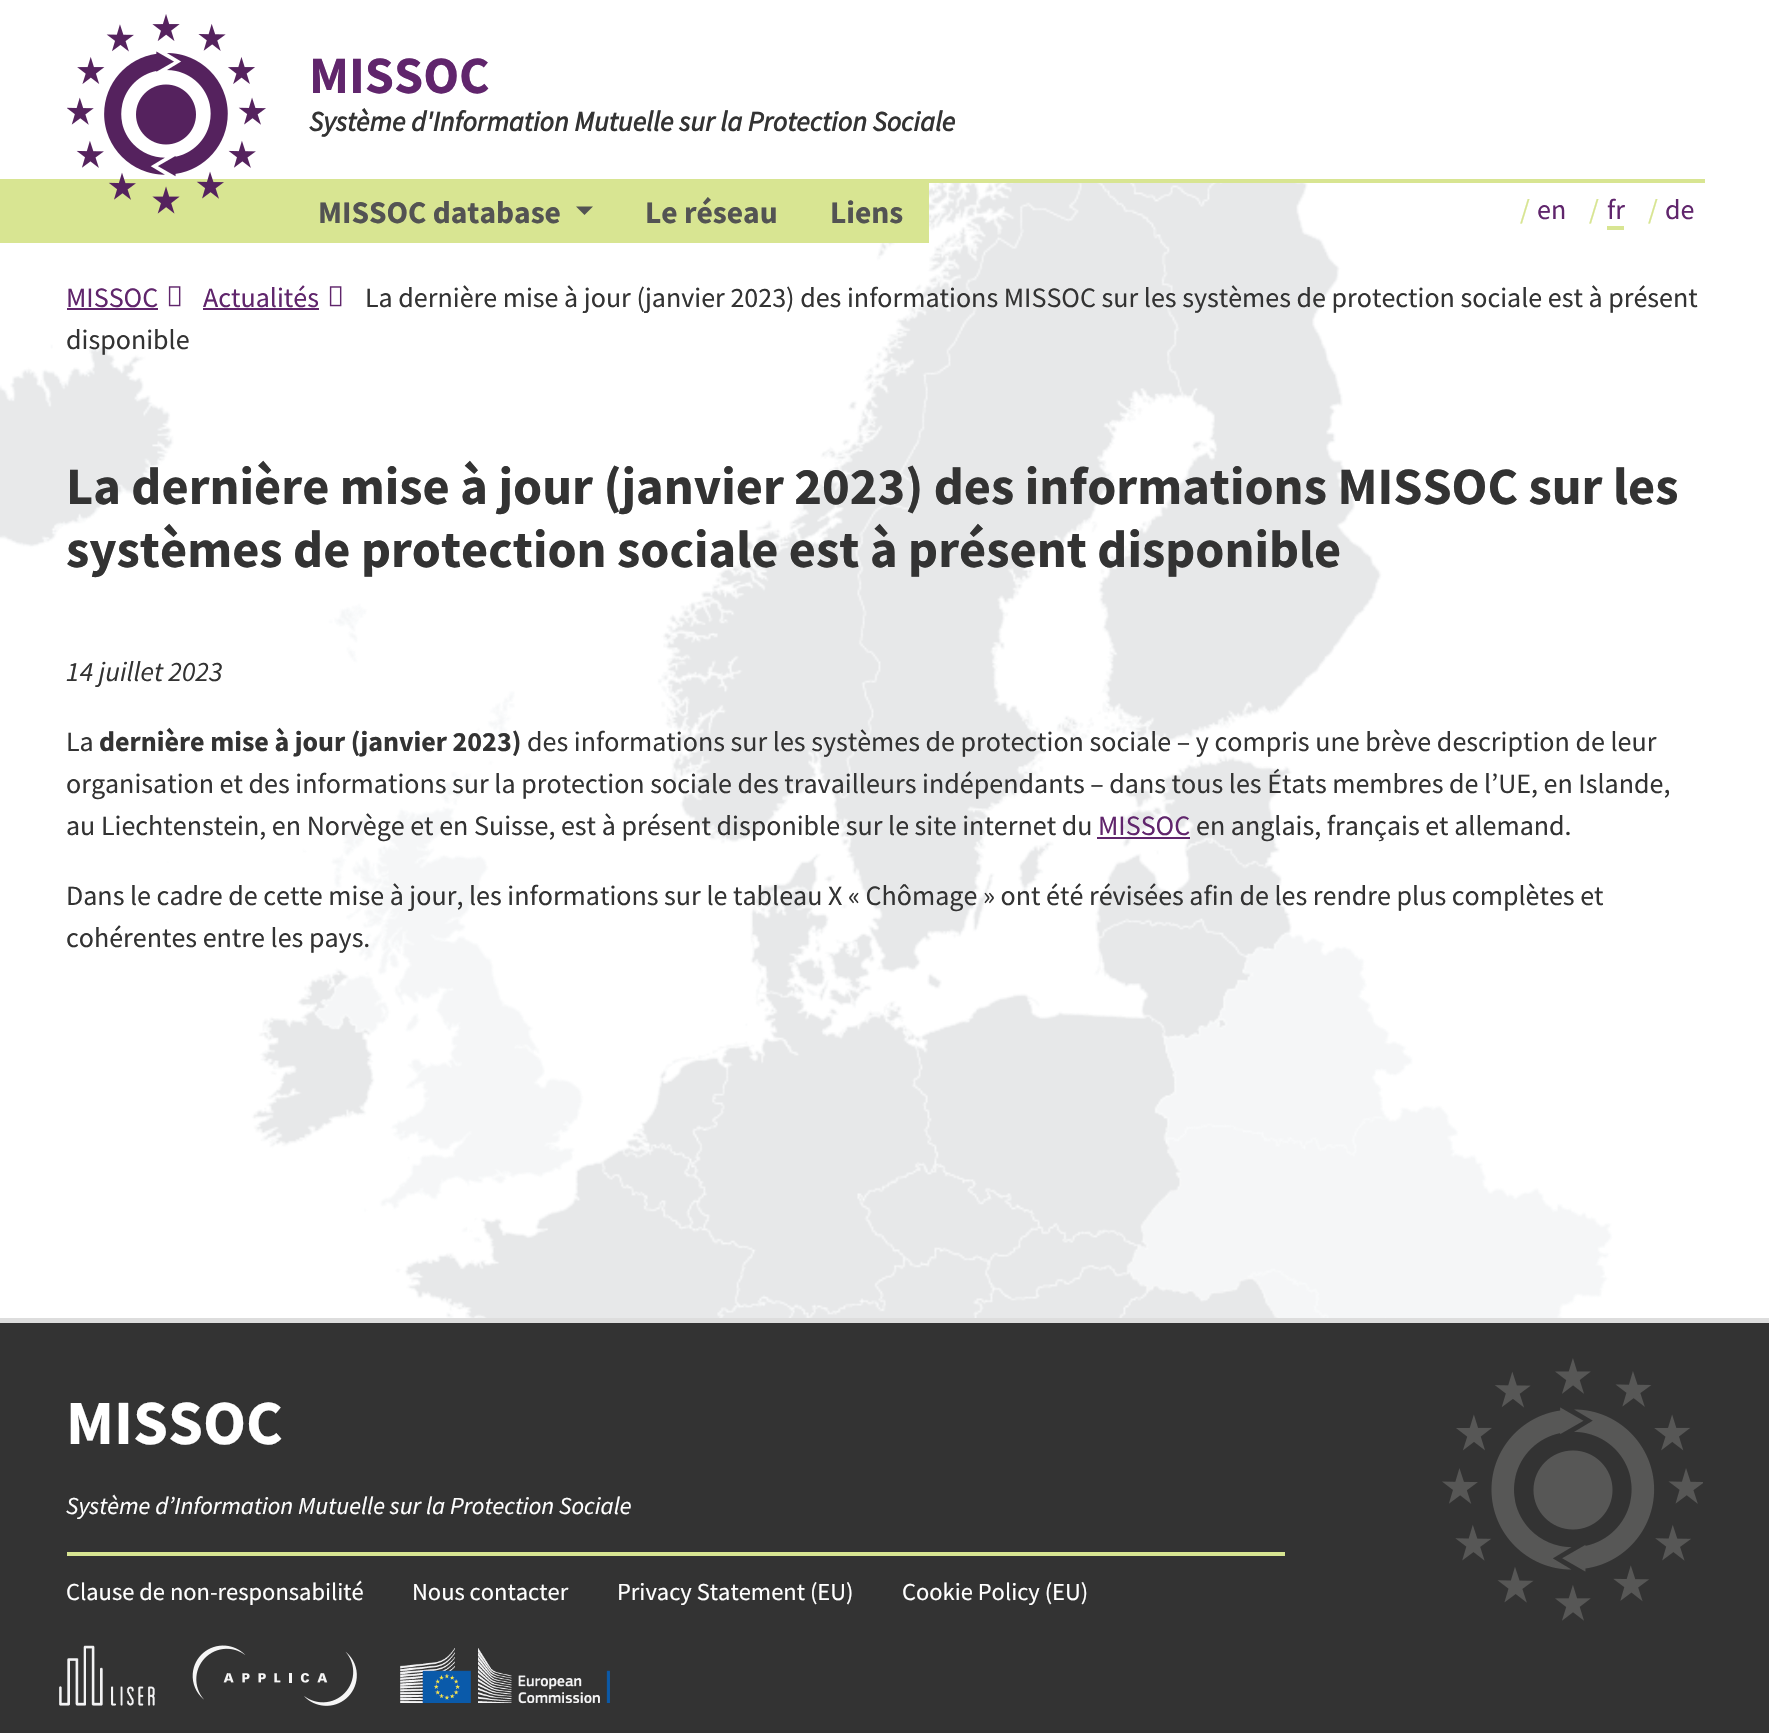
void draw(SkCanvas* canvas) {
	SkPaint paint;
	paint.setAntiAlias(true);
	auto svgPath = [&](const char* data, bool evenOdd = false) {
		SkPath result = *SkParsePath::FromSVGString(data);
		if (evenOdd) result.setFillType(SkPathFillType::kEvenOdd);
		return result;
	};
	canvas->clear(0xffffffff);
	canvas->drawImageRect(SkImages::DeferredFromEncodedData(SkData::MakeFromFileName("img1.png")), SkRect::MakeXYWH(0, 183, 1613, 1135), SkSamplingOptions());
	paint.setColor(0xffd8e592);
	canvas->drawRect(SkRect::MakeXYWH(0, 179, 929, 64), paint);
	canvas->drawImageRect(SkImages::DeferredFromEncodedData(SkData::MakeFromFileName("img2.png")), SkRect::MakeXYWH(67, 14, 199, 200), SkSamplingOptions());
	canvas->drawRect(SkRect::MakeXYWH(929, 179, 776, 4), paint);
	SkFont f1(fontMgr->matchFamilyStyle("Source Sans Pro", SkFontStyle::Bold()), 52.5);
	f1.setSubpixel(true);
	paint.setColor(0xff60256c);
	canvas->drawString("MISSOC", 309, 93, f1, paint);
	SkFont f2(fontMgr->matchFamilyStyle("Source Sans Pro", SkFontStyle::BoldItalic()), 28);
	f2.setSubpixel(true);
	paint.setColor(0xff333333);
	canvas->drawString("Système d'Information Mutuelle sur la Protection Sociale", 309, 131, f2, paint);
	SkFont f3(fontMgr->matchFamilyStyle("Source Sans Pro", SkFontStyle::Bold()), 31.5);
	f3.setSubpixel(true);
	paint.setColor(0xff535353);
	canvas->drawString("MISSOC database", 318, 223, f3, paint);
	canvas->drawPath(svgPath("M576 206.5H593L584.5 215Z"), paint);
	canvas->drawString("Le réseau", 645, 223, f3, paint);
	canvas->drawString("Liens", 830, 223, f3, paint);
	SkFont f4(fontMgr->matchFamilyStyle("Source Sans Pro", SkFontStyle::Normal()), 28);
	f4.setSubpixel(true);
	paint.setColor(0xffd8e592);
	canvas->drawString("/", 1520, 219, f4, paint);
	paint.setColor(0xff60256c);
	canvas->drawString("en", 1537, 219, f4, paint);
	paint.setColor(0xffd8e592);
	canvas->drawString("/", 1589, 219, f4, paint);
	paint.setColor(0xff60256c);
	canvas->drawString("fr", 1607, 219, f4, paint);
	paint.setColor(0xffd8e592);
	canvas->drawRect(SkRect::MakeXYWH(1607, 226, 17, 4), paint);
	canvas->drawString("/", 1648, 219, f4, paint);
	paint.setColor(0xff60256c);
	canvas->drawString("de", 1665, 219, f4, paint);
	canvas->drawString("MISSOC", 66, 307, f4, paint);
	canvas->drawRect(SkRect::MakeXYWH(67, 308, 91, 2), paint);
	canvas->drawImageRect(SkImages::DeferredFromEncodedData(SkData::MakeFromFileName("img3.png")), SkRect::MakeXYWH(168, 286, 13, 21), SkSamplingOptions());
	canvas->drawString("Actualités", 203, 307, f4, paint);
	canvas->drawRect(SkRect::MakeXYWH(203, 308, 116, 2), paint);
	canvas->drawImageRect(SkImages::DeferredFromEncodedData(SkData::MakeFromFileName("img3.png")), SkRect::MakeXYWH(329, 286, 13, 21), SkSamplingOptions());
	paint.setColor(0xff333333);
	canvas->drawString("La dernière mise à jour (janvier 2023) des informations MISSOC sur les systèmes de protection sociale est à présent", 365, 307, f4, paint);
	canvas->drawString("disponible", 66, 349, f4, paint);
	canvas->drawString("La dernière mise à jour (janvier 2023) des informations MISSOC sur les", 66, 504, f1, paint);
	canvas->drawString("systèmes de protection sociale est à présent disponible", 66, 567, f1, paint);
	SkFont f5(fontMgr->matchFamilyStyle("Source Sans Pro", SkFontStyle::Italic()), 28);
	f5.setSubpixel(true);
	canvas->drawString("14 juillet 2023", 66, 681, f5, paint);
	canvas->drawString("La", 66, 751, f4, paint);
	SkFont f6(fontMgr->matchFamilyStyle("Source Sans Pro", SkFontStyle::Bold()), 28);
	f6.setSubpixel(true);
	canvas->drawString("dernière mise à jour (janvier 2023)", 99, 751, f6, paint);
	canvas->drawString("des informations sur les systèmes de protection sociale – y compris une brève description de leur", 527, 751, f4, paint);
	canvas->drawString("organisation et des informations sur la protection sociale des travailleurs indépendants – dans tous les États membres de l’UE, en Islande,", 66, 793, f4, paint);
	canvas->drawString("au Liechtenstein, en Norvège et en Suisse, est à présent disponible sur le site internet du", 66, 835, f4, paint);
	paint.setColor(0xff60256c);
	canvas->drawString("MISSOC", 1098, 835, f4, paint);
	canvas->drawRect(SkRect::MakeXYWH(1097, 837, 93, 2), paint);
	paint.setColor(0xff333333);
	canvas->drawString("en anglais, français et allemand.", 1196, 835, f4, paint);
	canvas->drawString("Dans le cadre de cette mise à jour, les informations sur le tableau X « Chômage » ont été révisées afin de les rendre plus complètes et", 66, 905, f4, paint);
	canvas->drawString("cohérentes entre les pays.", 66, 947, f4, paint);
	canvas->drawRect(SkRect::MakeXYWH(0, 1323, 1769, 410), paint);
	paint.setColor(0xffdddddd);
	canvas->drawRect(SkRect::MakeXYWH(0, 1318, 1769, 5), paint);
	SkFont f7(fontMgr->matchFamilyStyle("Source Sans Pro", SkFontStyle::Bold()), 63);
	f7.setSubpixel(true);
	paint.setColor(0xffffffff);
	canvas->drawString("MISSOC", 66, 1444, f7, paint);
	SkFont f8(fontMgr->matchFamilyStyle("Source Sans Pro", SkFontStyle::Italic()), 24.5);
	f8.setSubpixel(true);
	canvas->drawString("Système d’Information Mutuelle sur la Protection Sociale", 66, 1514, f8, paint);
	paint.setColor(0xffd8e592);
	canvas->drawRect(SkRect::MakeXYWH(67, 1552, 1218, 4), paint);
	SkFont f9(fontMgr->matchFamilyStyle("Source Sans Pro", SkFontStyle::Normal()), 24.5);
	f9.setSubpixel(true);
	paint.setColor(0xffffffff);
	canvas->drawString("Clause de non-responsabilité", 66, 1600, f9, paint);
	canvas->drawString("Nous contacter", 412, 1600, f9, paint);
	canvas->drawString("Privacy Statement (EU)", 617, 1600, f9, paint);
	canvas->drawString("Cookie Policy (EU)", 902, 1600, f9, paint);
	canvas->drawImageRect(SkImages::DeferredFromEncodedData(SkData::MakeFromFileName("img4.png")), SkRect::MakeXYWH(59, 1645, 96, 61), SkSamplingOptions());
	canvas->drawImageRect(SkImages::DeferredFromEncodedData(SkData::MakeFromFileName("img5.png")), SkRect::MakeXYWH(192, 1645, 165, 61), SkSamplingOptions());
	canvas->drawImageRect(SkImages::DeferredFromEncodedData(SkData::MakeFromFileName("img6.png")), SkRect::MakeXYWH(400, 1648, 210, 56), SkSamplingOptions());
	canvas->drawImageRect(SkImages::DeferredFromEncodedData(SkData::MakeFromFileName("img7.png")), SkRect::MakeXYWH(1442, 1358, 261, 263), SkSamplingOptions());
}
